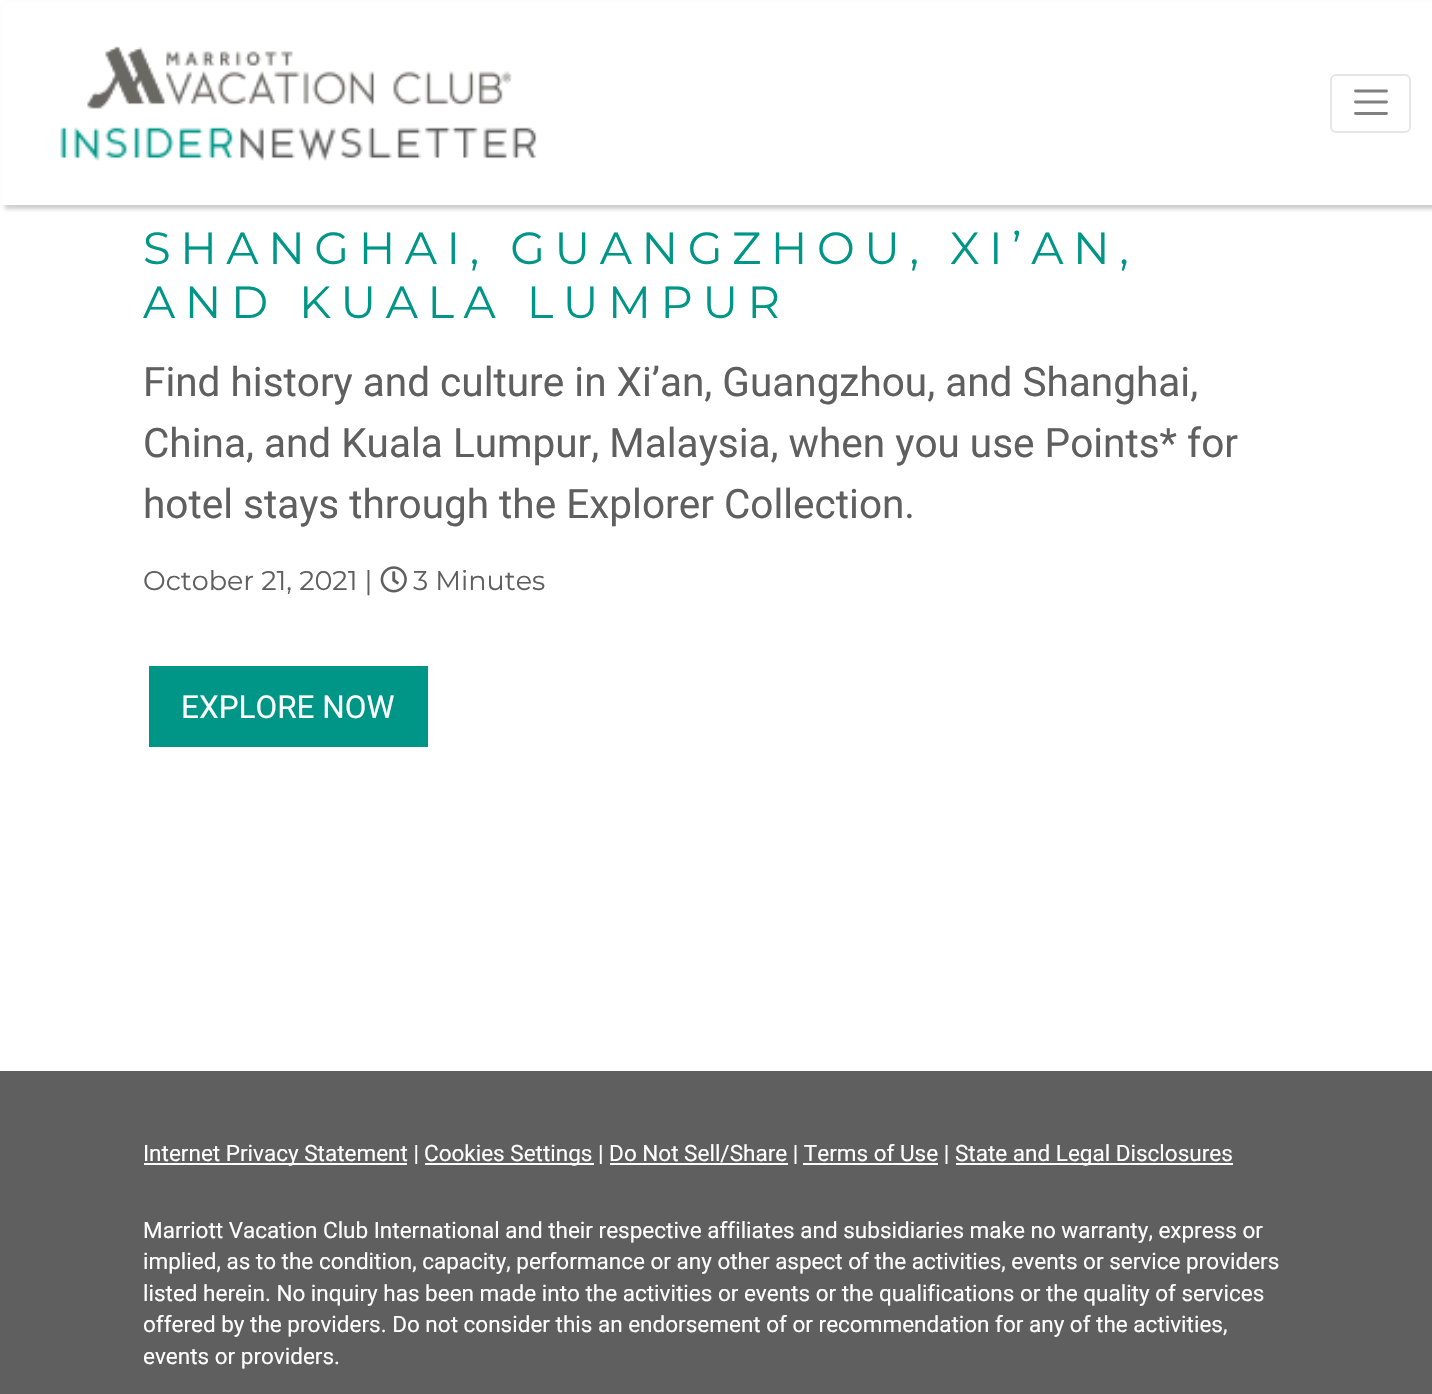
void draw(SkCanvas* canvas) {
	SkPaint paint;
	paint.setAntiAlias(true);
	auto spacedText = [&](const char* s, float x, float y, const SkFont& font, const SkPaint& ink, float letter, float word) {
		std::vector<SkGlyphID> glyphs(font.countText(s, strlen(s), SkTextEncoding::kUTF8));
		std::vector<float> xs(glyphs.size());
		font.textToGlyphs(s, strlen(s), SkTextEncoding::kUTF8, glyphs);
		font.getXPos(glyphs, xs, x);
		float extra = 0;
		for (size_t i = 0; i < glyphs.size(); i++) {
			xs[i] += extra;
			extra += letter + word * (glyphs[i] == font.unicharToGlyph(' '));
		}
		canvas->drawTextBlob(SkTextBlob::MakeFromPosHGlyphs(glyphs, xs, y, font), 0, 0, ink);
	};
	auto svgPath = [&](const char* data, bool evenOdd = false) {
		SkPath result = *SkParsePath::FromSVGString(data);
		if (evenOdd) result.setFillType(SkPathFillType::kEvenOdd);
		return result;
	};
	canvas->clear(0xffffffff);
	paint.setColor(0x33000000);
	paint.setMaskFilter(SkMaskFilter::MakeBlur(kNormal_SkBlurStyle, 2));
	canvas->drawRect(SkRect::MakeXYWH(5, 5, 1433, 204), paint);
	paint.setMaskFilter(nullptr);
	paint.setColor(0xffffffff);
	canvas->drawRect(SkRect::MakeXYWH(2, 2, 1430, 203), paint);
	canvas->drawImageRect(SkImages::DeferredFromEncodedData(SkData::MakeFromFileName("img1.png")), SkRect::MakeXYWH(60, 46, 477, 115), SkSamplingOptions());
	paint.setStroke(true);
	paint.setStrokeWidth(2);
	paint.setColor(0xffe6e6e6);
	canvas->drawRoundRect(SkRect::MakeXYWH(1331, 75, 79, 57), 5, 5, paint);
	paint.setStrokeWidth(2.8);
	paint.setStrokeCap(SkPaint::kRound_Cap);
	paint.setColor(0xff808080);
	canvas->drawPath(svgPath("M1355.5 91H1386.5M1355.5 102H1386.5M1355.5 113.5H1386.5"), paint);
	SkFont f1(fontMgr->matchFamilyStyle("Montserrat", SkFontStyle(100, SkFontStyle::kNormal_Width, SkFontStyle::kUpright_Slant)), 45);
	f1.setSubpixel(true);
	paint.setStroke(false);
	paint.setColor(0xff009687);
	spacedText("SHANGHAI, GUANGZHOU, XI’AN,", 143, 264, f1, paint, 9.55, 0);
	spacedText("AND KUALA LUMPUR", 143, 318, f1, paint, 9.55, 0);
	SkFont f2(fontMgr->matchFamilyStyle("Roboto", SkFontStyle::Normal()), 40.5);
	f2.setSubpixel(true);
	paint.setColor(0xff5f5f5f);
	canvas->drawString("Find history and culture in Xi’an, Guangzhou, and Shanghai,", 143, 396, f2, paint);
	canvas->drawString("China, and Kuala Lumpur, Malaysia, when you use Points* for", 143, 457, f2, paint);
	canvas->drawString("hotel stays through the Explorer Collection.", 143, 518, f2, paint);
	SkFont f3(fontMgr->matchFamilyStyle("Montserrat", SkFontStyle(100, SkFontStyle::kNormal_Width, SkFontStyle::kUpright_Slant)), 27);
	f3.setSubpixel(true);
	canvas->drawString("October 21, 2021 |", 143, 590, f3, paint);
	canvas->drawImageRect(SkImages::DeferredFromEncodedData(SkData::MakeFromFileName("img2.png")), SkRect::MakeXYWH(380, 566, 27, 27), SkSamplingOptions());
	canvas->drawString("3 Minutes", 413, 590, f3, paint);
	paint.setColor(0xff009687);
	canvas->drawRect(SkRect::MakeXYWH(149, 666, 279, 81), paint);
	SkFont f4(fontMgr->matchFamilyStyle("Roboto", SkFontStyle::Normal()), 31.5);
	f4.setSubpixel(true);
	paint.setColor(0xffffffff);
	canvas->drawString("EXPLORE NOW", 181, 718, f4, paint);
	paint.setColor(0xff5f5f5f);
	canvas->drawRect(SkRect::MakeXYWH(0, 1071, 1432, 323), paint);
	paint.setColor(0xffffffff);
	canvas->drawRect(SkRect::MakeXYWH(144, 1163, 263, 2), paint);
	SkFont f5(fontMgr->matchFamilyStyle("Roboto", SkFontStyle::Normal()), 22.5);
	f5.setSubpixel(true);
	canvas->drawString("Internet Privacy Statement |", 143, 1161, f5, paint);
	canvas->drawRect(SkRect::MakeXYWH(425, 1163, 169, 2), paint);
	canvas->drawString("Cookies Settings | Do Not Sell/Share | Terms of Use |", 424, 1161, f5, paint);
	canvas->drawRect(SkRect::MakeXYWH(956, 1163, 277, 2), paint);
	canvas->drawString("State and Legal Disclosures", 955, 1161, f5, paint);
	canvas->drawRect(SkRect::MakeXYWH(610, 1163, 178, 2), paint);
	canvas->drawRect(SkRect::MakeXYWH(803, 1163, 135, 2), paint);
	canvas->drawString("Marriott Vacation Club International and their respective affiliates and subsidiaries make no warranty, express or", 143, 1238, f5, paint);
	canvas->drawString("implied, as to the condition, capacity, performance or any other aspect of the activities, events or service providers", 143, 1269, f5, paint);
	canvas->drawString("listed herein. No inquiry has been made into the activities or events or the qualifications or the quality of services", 143, 1301, f5, paint);
	canvas->drawString("offered by the providers. Do not consider this an endorsement of or recommendation for any of the activities,", 143, 1332, f5, paint);
	canvas->drawString("events or providers.", 143, 1364, f5, paint);
}
